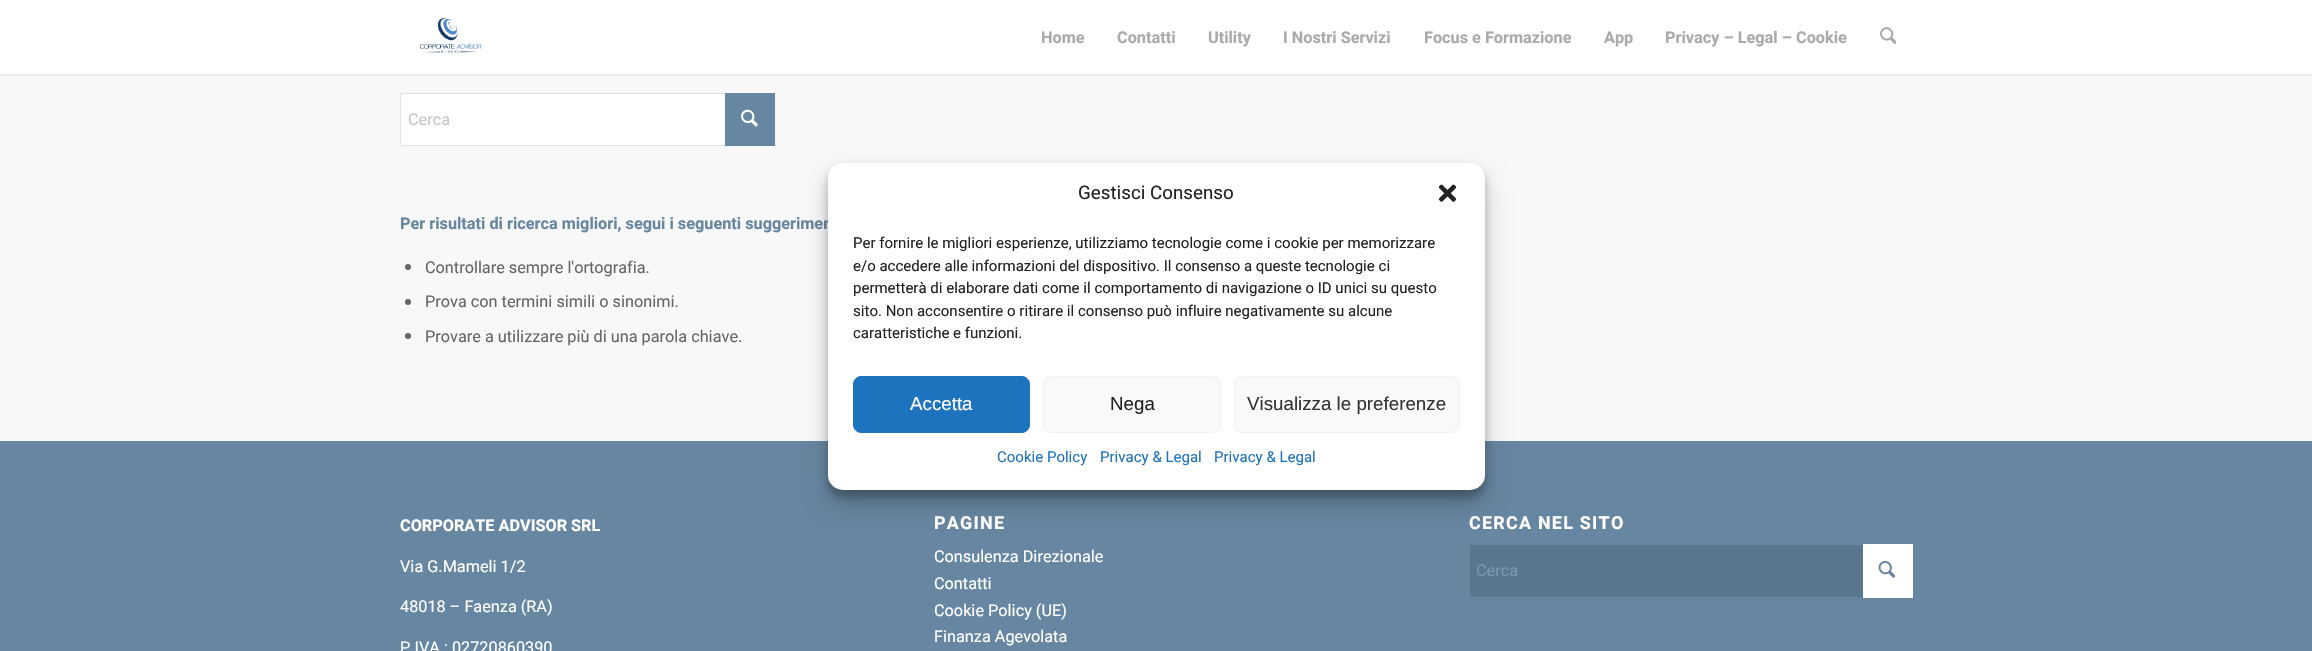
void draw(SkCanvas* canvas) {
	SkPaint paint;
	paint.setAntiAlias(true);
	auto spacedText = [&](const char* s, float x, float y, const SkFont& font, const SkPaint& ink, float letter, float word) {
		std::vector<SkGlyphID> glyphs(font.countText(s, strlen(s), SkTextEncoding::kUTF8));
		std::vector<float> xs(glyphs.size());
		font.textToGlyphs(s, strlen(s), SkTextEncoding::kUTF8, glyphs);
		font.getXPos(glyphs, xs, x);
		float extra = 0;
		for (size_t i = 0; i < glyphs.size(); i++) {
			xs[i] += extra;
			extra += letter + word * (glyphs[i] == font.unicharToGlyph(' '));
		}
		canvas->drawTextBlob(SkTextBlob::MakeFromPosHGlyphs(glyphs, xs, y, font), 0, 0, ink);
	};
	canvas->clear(0xfff8f8f8);
	paint.setColor(0x1a000000);
	paint.setMaskFilter(SkMaskFilter::MakeBlur(kNormal_SkBlurStyle, 1));
	canvas->drawRect(SkRect::MakeXYWH(-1, -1, 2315, 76), paint);
	paint.setMaskFilter(nullptr);
	paint.setColor(0xffffffff);
	canvas->drawRect(SkRect::MakeXYWH(0, 0, 2312, 74), paint);
	canvas->drawImageRect(SkImages::DeferredFromEncodedData(SkData::MakeFromFileName("img1.png")), SkRect::MakeXYWH(419, 17, 63, 36), SkSamplingOptions());
	SkFont f1(fontMgr->matchFamilyStyle("Heebo", SkFontStyle::Bold()), 16.25);
	f1.setSubpixel(true);
	paint.setColor(0xffaaaaaa);
	canvas->drawString("Home", 1041, 43, f1, paint);
	canvas->drawString("Contatti", 1117, 43, f1, paint);
	canvas->drawString("Utility", 1208, 43, f1, paint);
	canvas->drawString("I Nostri Servizi", 1283, 43, f1, paint);
	canvas->drawString("Focus e Formazione", 1424, 43, f1, paint);
	canvas->drawString("App", 1604, 43, f1, paint);
	canvas->drawString("Privacy – Legal – Cookie", 1665, 43, f1, paint);
	canvas->drawImageRect(SkImages::DeferredFromEncodedData(SkData::MakeFromFileName("img2.png")), SkRect::MakeXYWH(1880, 27, 16, 17), SkSamplingOptions());
	paint.setColor(0xffffffff);
	canvas->drawRect(SkRect::MakeXYWH(401, 94, 324, 51), paint);
	paint.setStroke(true);
	paint.setStrokeWidth(1);
	paint.setColor(0xffe1e1e1);
	canvas->drawRect(SkRect::MakeXYWH(400.5, 93.5, 374, 52), paint);
	paint.setStroke(false);
	paint.setColor(0xff6786a1);
	canvas->drawRect(SkRect::MakeXYWH(725, 93, 50, 53), paint);
	SkFont f2(fontMgr->matchFamilyStyle("Heebo", SkFontStyle::Normal()), 16.25);
	f2.setSubpixel(true);
	paint.setColor(0xffc6c6c6);
	canvas->drawString("Cerca", 408, 125, f2, paint);
	canvas->drawImageRect(SkImages::DeferredFromEncodedData(SkData::MakeFromFileName("img3.png")), SkRect::MakeXYWH(741, 109, 17, 18), SkSamplingOptions());
	paint.setColor(0xff6786a1);
	canvas->drawString("Per risultati di ricerca migliori, segui i seguenti suggerimen", 400, 229, f1, paint);
	paint.setColor(0xff666666);
	canvas->drawCircle(408, 267, 3, paint);
	canvas->drawString("Controllare sempre l'ortografia.", 425, 273, f2, paint);
	canvas->drawCircle(408, 302, 3, paint);
	canvas->drawString("Prova con termini simili o sinonimi.", 425, 307, f2, paint);
	canvas->drawCircle(408, 336, 3, paint);
	canvas->drawString("Provare a utilizzare più di una parola chiave.", 425, 342, f2, paint);
	paint.setColor(0xff6786a1);
	canvas->drawRect(SkRect::MakeXYWH(0, 441, 2312, 210), paint);
	paint.setColor(0xffffffff);
	canvas->drawString("CORPORATE ADVISOR SRL", 400, 531, f1, paint);
	canvas->drawString("Via G.Mameli 1/2", 400, 572, f2, paint);
	canvas->drawString("48018 – Faenza (RA)", 400, 612, f2, paint);
	canvas->drawString("P.IVA : 02720860390", 400, 653, f2, paint);
	SkFont f3(fontMgr->matchFamilyStyle("Heebo", SkFontStyle::Bold()), 17.9);
	f3.setSubpixel(true);
	spacedText("PAGINE", 934, 529, f3, paint, 1.25, 0);
	canvas->drawString("Consulenza Direzionale", 934, 562, f2, paint);
	canvas->drawString("Contatti", 934, 589, f2, paint);
	canvas->drawString("Cookie Policy (UE)", 934, 616, f2, paint);
	canvas->drawString("Finanza Agevolata", 934, 642, f2, paint);
	spacedText("CERCA NEL SITO", 1469, 529, f3, paint, 1.25, 0);
	canvas->drawRect(SkRect::MakeXYWH(1863, 544, 50, 54), paint);
	paint.setColor(0xff59778f);
	canvas->drawRect(SkRect::MakeXYWH(1470, 545, 393, 52), paint);
	paint.setColor(0xff7b98ae);
	canvas->drawString("Cerca", 1476, 576, f2, paint);
	canvas->drawImageRect(SkImages::DeferredFromEncodedData(SkData::MakeFromFileName("img4.png")), SkRect::MakeXYWH(1878, 561, 18, 17), SkSamplingOptions());
	paint.setColor(0x3b000000);
	paint.setMaskFilter(SkMaskFilter::MakeBlur(kNormal_SkBlurStyle, 4));
	canvas->drawRoundRect(SkRect::MakeXYWH(828, 170, 657, 328), 15, 15, paint);
	paint.setMaskFilter(nullptr);
	paint.setColor(0x30000000);
	paint.setMaskFilter(SkMaskFilter::MakeBlur(kNormal_SkBlurStyle, 12.5));
	canvas->drawRoundRect(SkRect::MakeXYWH(828, 175, 657, 328), 15, 15, paint);
	paint.setMaskFilter(nullptr);
	paint.setColor(0xffffffff);
	canvas->drawRoundRect(SkRect::MakeXYWH(828, 163, 657, 327), 15, 15, paint);
	SkFont f4(fontMgr->matchFamilyStyle("Heebo", SkFontStyle::Normal()), 18.75);
	f4.setSubpixel(true);
	paint.setColor(0xff222222);
	canvas->drawString("Gestisci Consenso", 1078, 199, f4, paint);
	canvas->drawImageRect(SkImages::DeferredFromEncodedData(SkData::MakeFromFileName("img5.png")), SkRect::MakeXYWH(1438, 184, 19, 18), SkSamplingOptions());
	SkFont f5(fontMgr->matchFamilyStyle("Heebo", SkFontStyle::Normal()), 15);
	f5.setSubpixel(true);
	canvas->drawString("Per fornire le migliori esperienze, utilizziamo tecnologie come i cookie per memorizzare", 853, 248, f5, paint);
	canvas->drawString("e/o accedere alle informazioni del dispositivo. Il consenso a queste tecnologie ci", 853, 271, f5, paint);
	canvas->drawString("permetterà di elaborare dati come il comportamento di navigazione o ID unici su questo", 853, 293, f5, paint);
	canvas->drawString("sito. Non acconsentire o ritirare il consenso può influire negativamente su alcune", 853, 316, f5, paint);
	canvas->drawString("caratteristiche e funzioni.", 853, 338, f5, paint);
	paint.setColor(0xff1e73be);
	canvas->drawRoundRect(SkRect::MakeXYWH(853.5, 376.5, 176, 56), 7.5, 7.5, paint);
	paint.setStroke(true);
	canvas->drawRoundRect(SkRect::MakeXYWH(853.5, 376.5, 176, 56), 7.5, 7.5, paint);
	SkFont f6(fontMgr->matchFamilyStyle("Liberation Sans", SkFontStyle::Normal()), 18.75);
	f6.setSubpixel(true);
	paint.setStroke(false);
	paint.setColor(0xffffffff);
	canvas->drawString("Accetta", 910, 410, f6, paint);
	paint.setColor(0xfff9f9f9);
	canvas->drawRoundRect(SkRect::MakeXYWH(1043.5, 376.5, 177, 56), 7.5, 7.5, paint);
	paint.setStroke(true);
	paint.setColor(0xfff2f2f2);
	canvas->drawRoundRect(SkRect::MakeXYWH(1043.5, 376.5, 177, 56), 7.5, 7.5, paint);
	paint.setStroke(false);
	paint.setColor(0xff222222);
	canvas->drawString("Nega", 1110, 410, f6, paint);
	paint.setColor(0xfff9f9f9);
	canvas->drawRoundRect(SkRect::MakeXYWH(1234.5, 376.5, 225, 56), 7.5, 7.5, paint);
	paint.setStroke(true);
	paint.setColor(0xfff2f2f2);
	canvas->drawRoundRect(SkRect::MakeXYWH(1234.5, 376.5, 225, 56), 7.5, 7.5, paint);
	paint.setStroke(false);
	paint.setColor(0xff333333);
	canvas->drawString("Visualizza le preferenze", 1247, 410, f6, paint);
	paint.setColor(0xff1e73be);
	canvas->drawString("Cookie Policy", 997, 462, f5, paint);
	canvas->drawString("Privacy & Legal", 1100, 462, f5, paint);
	canvas->drawString("Privacy & Legal", 1214, 462, f5, paint);
}
